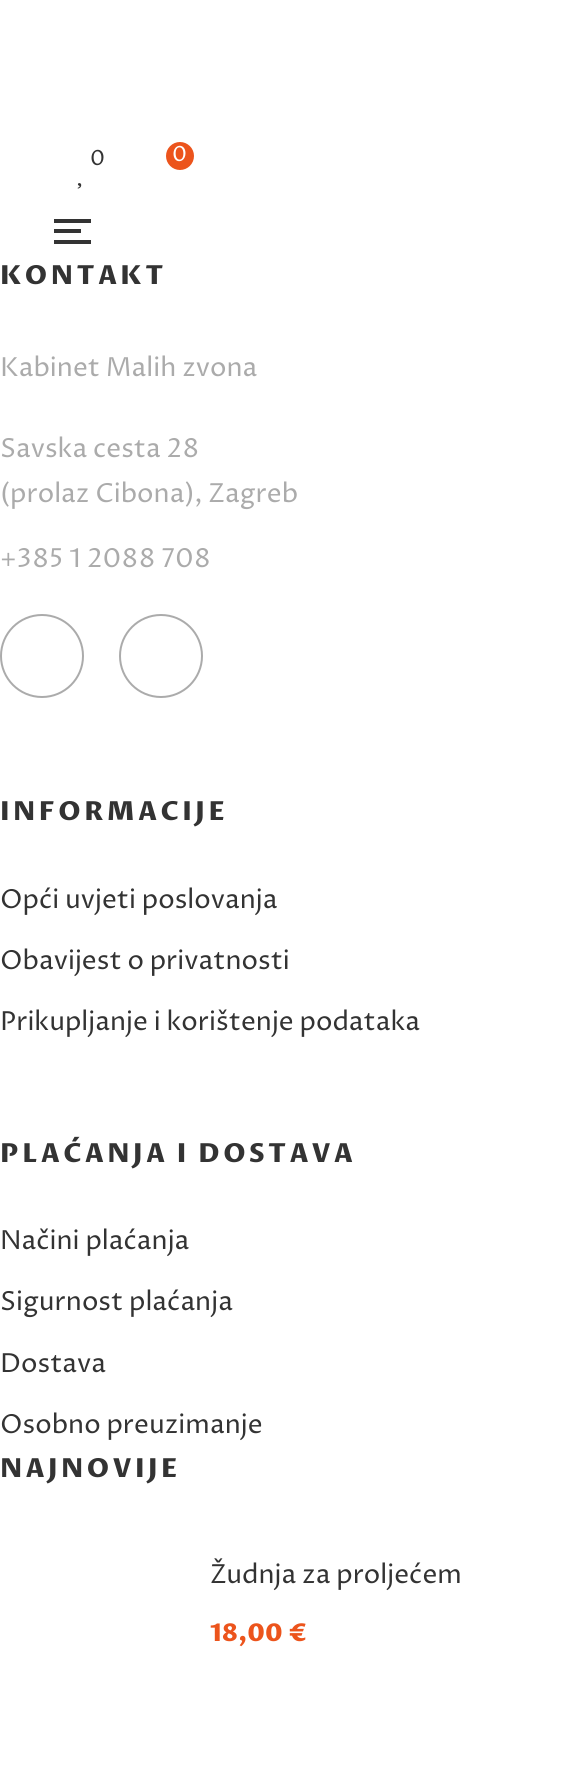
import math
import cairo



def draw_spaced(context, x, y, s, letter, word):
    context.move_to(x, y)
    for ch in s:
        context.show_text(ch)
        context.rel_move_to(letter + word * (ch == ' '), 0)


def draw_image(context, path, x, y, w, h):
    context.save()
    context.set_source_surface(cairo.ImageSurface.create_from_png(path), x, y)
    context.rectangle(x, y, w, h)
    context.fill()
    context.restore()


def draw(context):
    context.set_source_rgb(1, 1, 1)
    context.paint()
    draw_image(context, "images/1.png", 77, 183, 5, 6)
    context.set_source_rgb(236 / 255, 84 / 255, 28 / 255)
    context.arc(180, 156, 14, 0, 2 * math.pi)
    context.fill()
    context.set_source_rgb(51 / 255, 51 / 255, 51 / 255)
    context.rectangle(54, 229, 27, 4)
    context.fill()
    context.rectangle(54, 219, 37, 4)
    context.fill()
    context.rectangle(54, 240, 37, 4)
    context.fill()
    context.arc(42, 656, 41, 0, 2 * math.pi)
    context.set_source_rgb(171 / 255, 171 / 255, 171 / 255)
    context.stroke()
    context.arc(161, 656, 41, 0, 2 * math.pi)
    context.stroke()
    context.select_font_face("Proza Libre")
    context.set_font_size(21)
    context.set_source_rgb(51 / 255, 51 / 255, 51 / 255)
    context.move_to(90, 165)
    context.show_text("0")
    context.set_source_rgb(1, 1, 1)
    context.move_to(172, 161)
    context.show_text("0")
    context.select_font_face("Proza Libre ExtraBold")
    context.set_font_size(26.25)
    context.set_source_rgb(51 / 255, 51 / 255, 51 / 255)
    draw_spaced(context, 0, 284, "KONTAKT", 3.5, 0)
    context.select_font_face("Proza Libre")
    context.set_source_rgb(171 / 255, 171 / 255, 171 / 255)
    context.move_to(0, 376)
    context.show_text("Kabinet Malih zvona")
    context.move_to(0, 457)
    context.show_text("Savska cesta 28")
    context.move_to(0, 502)
    context.show_text("(prolaz Cibona), Zagreb")
    context.move_to(0, 567)
    context.show_text("+385 1 2088 708")
    context.select_font_face("Proza Libre ExtraBold")
    context.set_source_rgb(51 / 255, 51 / 255, 51 / 255)
    draw_spaced(context, 0, 820, "INFORMACIJE", 3.5, 0)
    context.select_font_face("Proza Libre")
    context.move_to(0, 908)
    context.show_text("Opći uvjeti poslovanja")
    context.move_to(0, 969)
    context.show_text("Obavijest o privatnosti")
    context.move_to(0, 1030)
    context.show_text("Prikupljanje i korištenje podataka")
    context.select_font_face("Proza Libre ExtraBold")
    draw_spaced(context, 0, 1162, "PLAĆANJA I DOSTAVA", 3.5, 0)
    context.select_font_face("Proza Libre")
    context.move_to(0, 1249)
    context.show_text("Načini plaćanja")
    context.move_to(0, 1310)
    context.show_text("Sigurnost plaćanja")
    context.move_to(0, 1372)
    context.show_text("Dostava")
    context.move_to(0, 1433)
    context.show_text("Osobno preuzimanje")
    context.select_font_face("Proza Libre ExtraBold")
    draw_spaced(context, 0, 1477, "NAJNOVIJE", 3.5, 0)
    context.select_font_face("Proza Libre")
    context.move_to(210, 1583)
    context.show_text("Žudnja za proljećem")
    context.select_font_face("Proza Libre ExtraBold")
    context.set_font_size(24.5)
    context.set_source_rgb(236 / 255, 84 / 255, 28 / 255)
    context.move_to(210, 1641)
    context.show_text("18,00")
    context.move_to(288, 1641)
    context.show_text("€")


surface = cairo.ImageSurface(cairo.Format.RGB24, 576, 1790)
context = cairo.Context(surface)
options = cairo.FontOptions()
options.set_hint_metrics(cairo.HintMetrics.OFF)
options.set_hint_style(cairo.HintStyle.NONE)
context.set_font_options(options)
context.set_miter_limit(4)
draw(context)
surface.write_to_png("out.png")
